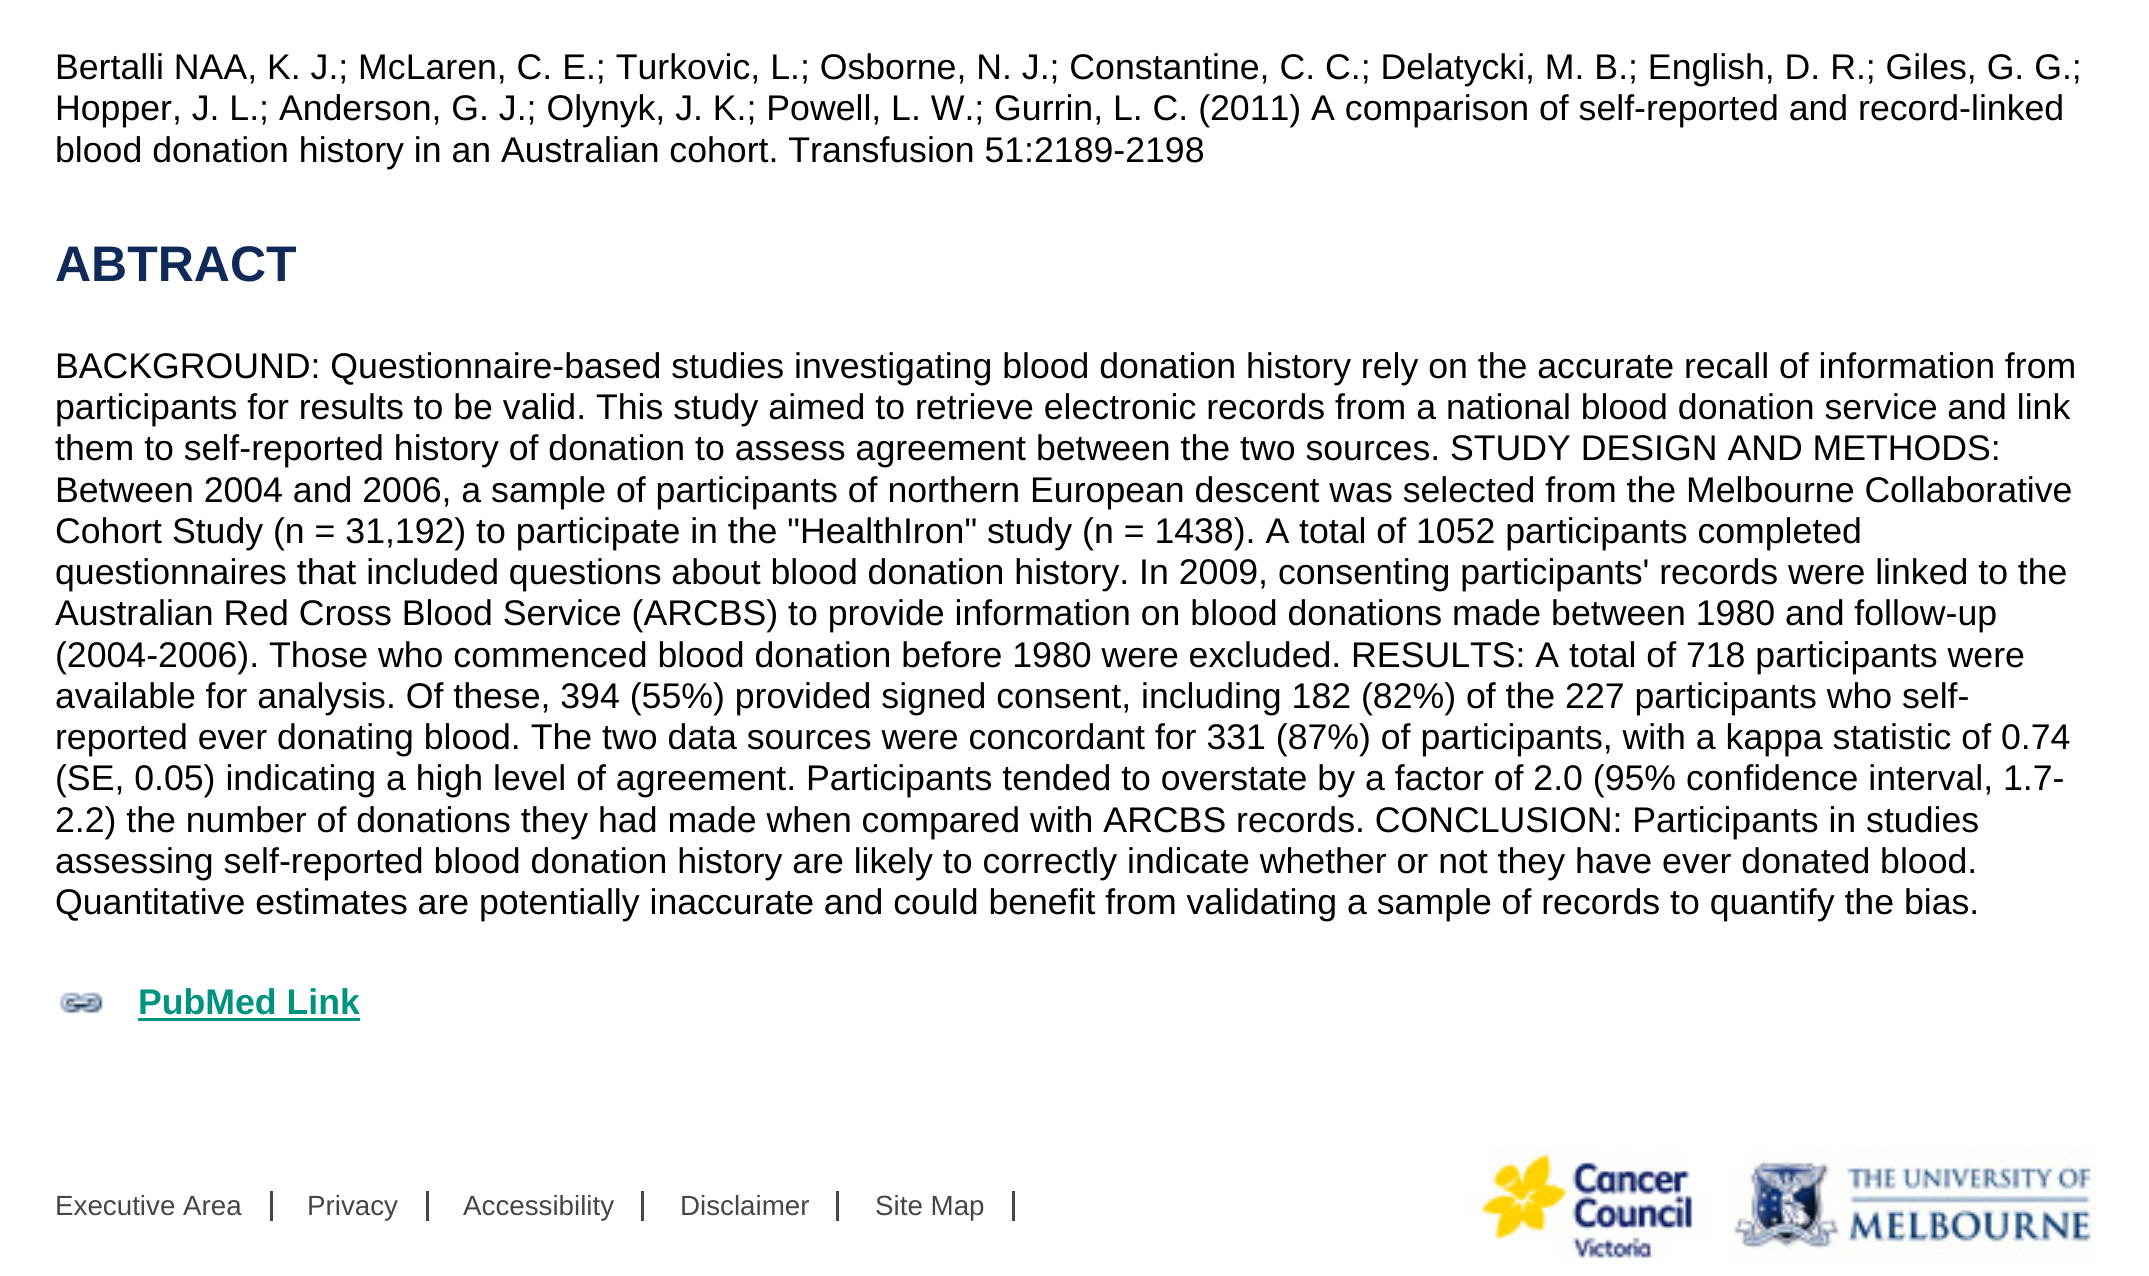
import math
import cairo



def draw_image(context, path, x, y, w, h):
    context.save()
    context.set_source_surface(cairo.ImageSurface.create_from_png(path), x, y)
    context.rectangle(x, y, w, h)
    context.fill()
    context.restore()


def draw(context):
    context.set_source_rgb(1, 1, 1)
    context.paint()
    draw_image(context, "images/1.png", 59, 992, 44, 22)
    context.set_source_rgb(0, 147 / 255, 127 / 255)
    context.rectangle(138, 1018, 222, 3)
    context.fill()
    context.set_source_rgb(70 / 255, 70 / 255, 70 / 255)
    context.rectangle(270, 1191, 3, 30)
    context.fill()
    context.rectangle(426, 1191, 3, 30)
    context.fill()
    context.rectangle(641, 1191, 3, 30)
    context.fill()
    context.rectangle(836, 1191, 3, 30)
    context.fill()
    context.rectangle(1012, 1191, 3, 30)
    context.fill()
    draw_image(context, "images/2.png", 1469, 1149, 627, 111)
    context.select_font_face("Liberation Sans")
    context.set_font_size(35.65)
    context.set_source_rgb(0, 0, 0)
    context.move_to(55, 79)
    context.show_text("Bertalli NAA, K. J.; McLaren, C. E.; Turkovic, L.; Osborne, N. J.; Constantine, C. C.; Delatycki, M. B.; English, D. R.; Giles, G. G.;")
    context.move_to(55, 120)
    context.show_text("Hopper, J. L.; Anderson, G. J.; Olynyk, J. K.; Powell, L. W.; Gurrin, L. C. (2011) A comparison of self-reported and record-linked")
    context.move_to(55, 162)
    context.show_text("blood donation history in an Australian cohort. Transfusion 51:2189-2198")
    context.select_font_face("Liberation Sans", cairo.FontSlant.NORMAL, cairo.FontWeight.BOLD)
    context.set_font_size(50)
    context.set_source_rgb(15 / 255, 42 / 255, 89 / 255)
    context.move_to(55, 281)
    context.show_text("ABTRACT")
    context.select_font_face("Liberation Sans")
    context.set_font_size(35.65)
    context.set_source_rgb(0, 0, 0)
    context.move_to(55, 378)
    context.show_text("BACKGROUND: Questionnaire-based studies investigating blood donation history rely on the accurate recall of information from")
    context.move_to(55, 419)
    context.show_text("participants for results to be valid. This study aimed to retrieve electronic records from a national blood donation service and link")
    context.move_to(55, 460)
    context.show_text("them to self-reported history of donation to assess agreement between the two sources. STUDY DESIGN AND METHODS:")
    context.move_to(55, 502)
    context.show_text("Between 2004 and 2006, a sample of participants of northern European descent was selected from the Melbourne Collaborative")
    context.move_to(55, 543)
    context.show_text("Cohort Study (n = 31,192) to participate in the \"HealthIron\" study (n = 1438). A total of 1052 participants completed")
    context.move_to(55, 584)
    context.show_text("questionnaires that included questions about blood donation history. In 2009, consenting participants' records were linked to the")
    context.move_to(55, 625)
    context.show_text("Australian Red Cross Blood Service (ARCBS) to provide information on blood donations made between 1980 and follow-up")
    context.move_to(55, 667)
    context.show_text("(2004-2006). Those who commenced blood donation before 1980 were excluded. RESULTS: A total of 718 participants were")
    context.move_to(55, 708)
    context.show_text("available for analysis. Of these, 394 (55%) provided signed consent, including 182 (82%) of the 227 participants who self-")
    context.move_to(55, 749)
    context.show_text("reported ever donating blood. The two data sources were concordant for 331 (87%) of participants, with a kappa statistic of 0.74")
    context.move_to(55, 790)
    context.show_text("(SE, 0.05) indicating a high level of agreement. Participants tended to overstate by a factor of 2.0 (95% confidence interval, 1.7-")
    context.move_to(55, 832)
    context.show_text("2.2) the number of donations they had made when compared with ARCBS records. CONCLUSION: Participants in studies")
    context.move_to(55, 873)
    context.show_text("assessing self-reported blood donation history are likely to correctly indicate whether or not they have ever donated blood.")
    context.move_to(55, 914)
    context.show_text("Quantitative estimates are potentially inaccurate and could benefit from validating a sample of records to quantify the bias.")
    context.select_font_face("Liberation Sans", cairo.FontSlant.NORMAL, cairo.FontWeight.BOLD)
    context.set_source_rgb(0, 147 / 255, 127 / 255)
    context.move_to(138, 1014)
    context.show_text("PubMed Link")
    context.select_font_face("Liberation Sans")
    context.set_font_size(27.75)
    context.set_source_rgb(70 / 255, 70 / 255, 70 / 255)
    context.move_to(55, 1215)
    context.show_text("Executive Area")
    context.move_to(307, 1215)
    context.show_text("Privacy")
    context.move_to(463, 1215)
    context.show_text("Accessibility")
    context.move_to(680, 1215)
    context.show_text("Disclaimer")
    context.move_to(875, 1215)
    context.show_text("Site Map")


surface = cairo.ImageSurface(cairo.Format.RGB24, 2149, 1276)
context = cairo.Context(surface)
options = cairo.FontOptions()
options.set_hint_metrics(cairo.HintMetrics.OFF)
options.set_hint_style(cairo.HintStyle.NONE)
context.set_font_options(options)
context.set_miter_limit(4)
draw(context)
surface.write_to_png("out.png")
